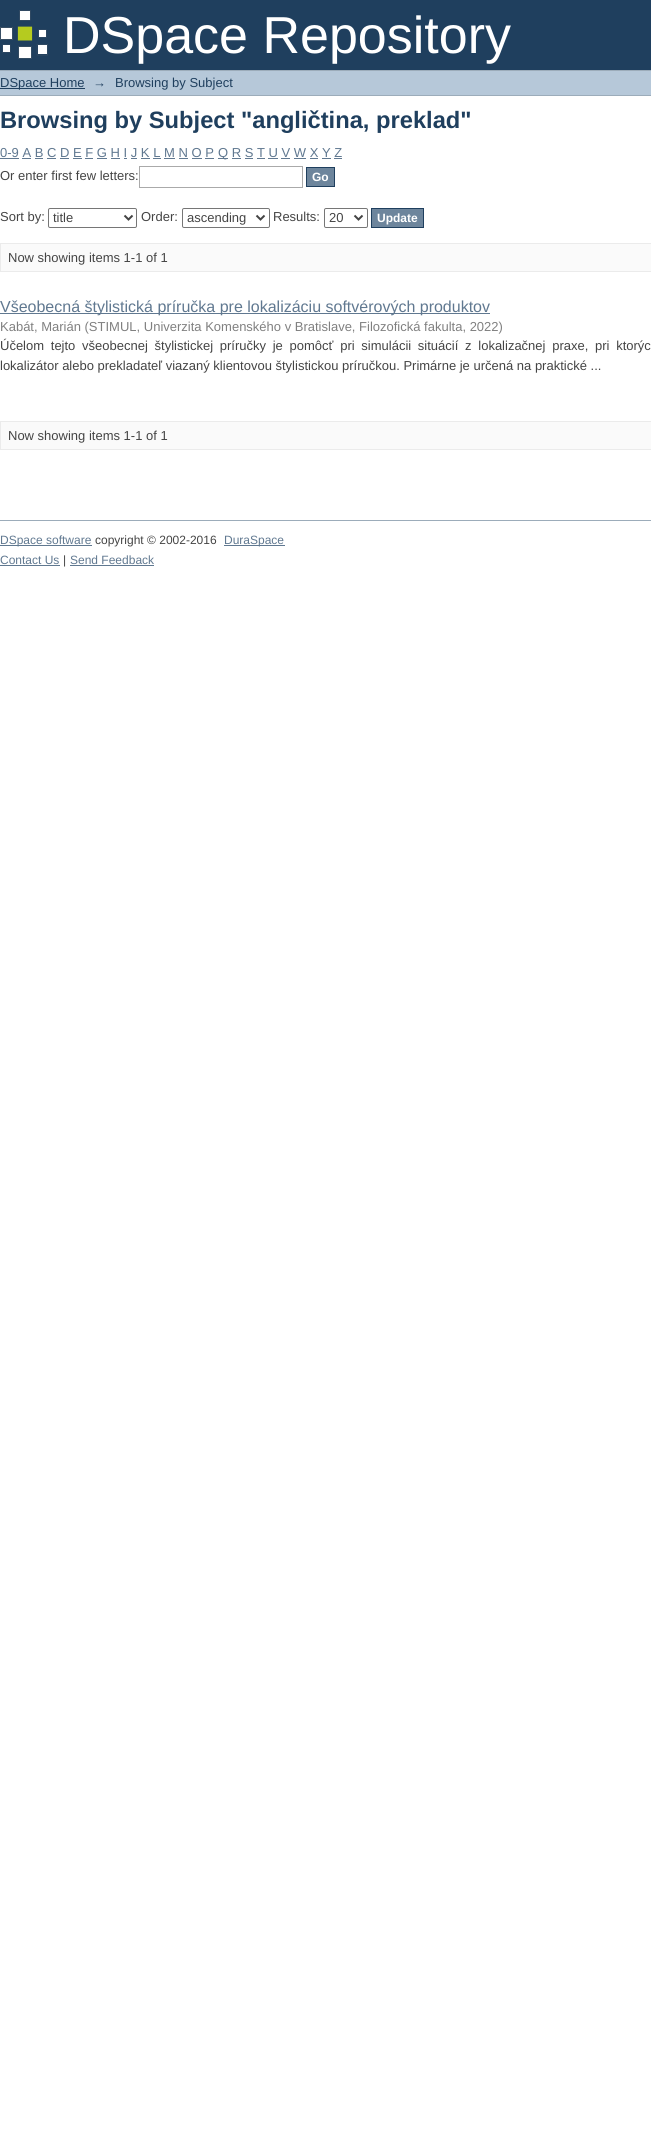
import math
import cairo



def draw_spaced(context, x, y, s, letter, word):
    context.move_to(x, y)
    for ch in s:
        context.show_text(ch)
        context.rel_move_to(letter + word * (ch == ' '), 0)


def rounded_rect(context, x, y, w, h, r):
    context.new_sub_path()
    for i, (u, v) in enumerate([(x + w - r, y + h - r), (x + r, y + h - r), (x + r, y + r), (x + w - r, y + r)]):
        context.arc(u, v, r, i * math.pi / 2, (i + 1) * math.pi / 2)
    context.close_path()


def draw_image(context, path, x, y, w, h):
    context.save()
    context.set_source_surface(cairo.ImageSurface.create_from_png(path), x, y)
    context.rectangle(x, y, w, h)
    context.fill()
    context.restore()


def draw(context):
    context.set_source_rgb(1, 1, 1)
    context.paint()
    context.set_source_rgb(31 / 255, 63 / 255, 94 / 255)
    context.rectangle(0, 0, 651, 70)
    context.fill()
    draw_image(context, "images/1.png", 0, 10, 48, 49)
    context.set_source_rgb(182 / 255, 200 / 255, 217 / 255)
    context.rectangle(0, 71, 651, 24)
    context.fill()
    context.set_source_rgb(156 / 255, 172 / 255, 186 / 255)
    context.rectangle(0, 70, 651, 1)
    context.fill()
    context.rectangle(0, 95, 651, 1)
    context.fill()
    context.set_source_rgb(31 / 255, 63 / 255, 94 / 255)
    context.rectangle(0, 88, 85, 1)
    context.fill()
    context.set_source_rgb(96 / 255, 120 / 255, 144 / 255)
    context.rectangle(0, 158, 19, 1)
    context.fill()
    context.rectangle(218, 158, 10, 1)
    context.fill()
    context.rectangle(22, 158, 9, 1)
    context.fill()
    context.rectangle(35, 158, 8, 1)
    context.fill()
    context.rectangle(47, 158, 9, 1)
    context.fill()
    context.rectangle(60, 158, 9, 1)
    context.fill()
    context.rectangle(73, 158, 9, 1)
    context.fill()
    context.rectangle(85, 158, 8, 1)
    context.fill()
    context.rectangle(97, 158, 10, 1)
    context.fill()
    context.rectangle(111, 158, 9, 1)
    context.fill()
    context.rectangle(124, 158, 3, 1)
    context.fill()
    context.rectangle(131, 158, 6, 1)
    context.fill()
    context.rectangle(141, 158, 9, 1)
    context.fill()
    context.rectangle(153, 158, 8, 1)
    context.fill()
    context.rectangle(164, 158, 11, 1)
    context.fill()
    context.rectangle(179, 158, 9, 1)
    context.fill()
    context.rectangle(192, 158, 10, 1)
    context.fill()
    context.rectangle(205, 158, 9, 1)
    context.fill()
    context.rectangle(232, 158, 9, 1)
    context.fill()
    context.rectangle(245, 158, 8, 1)
    context.fill()
    context.rectangle(257, 158, 8, 1)
    context.fill()
    context.rectangle(268, 158, 10, 1)
    context.fill()
    context.rectangle(281, 158, 9, 1)
    context.fill()
    context.rectangle(294, 158, 12, 1)
    context.fill()
    context.rectangle(310, 158, 8, 1)
    context.fill()
    context.rectangle(322, 158, 9, 1)
    context.fill()
    context.rectangle(334, 158, 8, 1)
    context.fill()
    context.rectangle(139.5, 166.5, 163, 21)
    context.set_source_rgb(170 / 255, 170 / 255, 170 / 255)
    context.set_line_width(1)
    context.stroke()
    context.set_source_rgb(109 / 255, 133 / 255, 156 / 255)
    context.rectangle(306.5, 167.5, 28, 19)
    context.fill_preserve()
    context.set_source_rgb(31 / 255, 63 / 255, 94 / 255)
    context.stroke()
    rounded_rect(context, 48.5, 208.5, 88, 19, 1.5)
    context.set_source_rgb(118 / 255, 118 / 255, 118 / 255)
    context.stroke()
    context.new_path()
    context.move_to(124.5, 215.5)
    context.line_to(128.5, 219.5)
    context.line_to(132.5, 215.5)
    context.set_source_rgb(68 / 255, 68 / 255, 68 / 255)
    context.set_line_width(2)
    context.stroke()
    rounded_rect(context, 182.5, 208.5, 87, 19, 1.5)
    context.set_source_rgb(118 / 255, 118 / 255, 118 / 255)
    context.set_line_width(1)
    context.stroke()
    context.new_path()
    context.move_to(256.5, 215.5)
    context.line_to(260.5, 219.5)
    context.line_to(264.5, 215.5)
    context.set_source_rgb(68 / 255, 68 / 255, 68 / 255)
    context.set_line_width(2)
    context.stroke()
    rounded_rect(context, 324.5, 208.5, 43, 19, 1.5)
    context.set_source_rgb(118 / 255, 118 / 255, 118 / 255)
    context.set_line_width(1)
    context.stroke()
    context.new_path()
    context.move_to(354.5, 215.5)
    context.line_to(358.5, 219.5)
    context.line_to(362.5, 215.5)
    context.set_source_rgb(68 / 255, 68 / 255, 68 / 255)
    context.set_line_width(2)
    context.stroke()
    context.set_source_rgb(109 / 255, 133 / 255, 156 / 255)
    context.rectangle(371.5, 208.5, 52, 19)
    context.fill_preserve()
    context.set_source_rgb(31 / 255, 63 / 255, 94 / 255)
    context.set_line_width(1)
    context.stroke()
    context.set_source_rgb(250 / 255, 250 / 255, 250 / 255)
    context.rectangle(0.5, 243.5, 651, 28)
    context.fill_preserve()
    context.set_source_rgb(235 / 255, 235 / 255, 235 / 255)
    context.stroke()
    context.set_source_rgb(96 / 255, 120 / 255, 144 / 255)
    context.rectangle(0, 313, 490, 1)
    context.fill()
    context.set_source_rgb(250 / 255, 250 / 255, 250 / 255)
    context.rectangle(0.5, 421.5, 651, 28)
    context.fill_preserve()
    context.set_source_rgb(235 / 255, 235 / 255, 235 / 255)
    context.stroke()
    context.set_source_rgb(156 / 255, 172 / 255, 186 / 255)
    context.rectangle(0, 520, 651, 1)
    context.fill()
    context.set_source_rgb(96 / 255, 120 / 255, 144 / 255)
    context.rectangle(0, 545, 92, 1)
    context.fill()
    context.rectangle(224, 545, 61, 1)
    context.fill()
    context.rectangle(0, 565, 60, 1)
    context.fill()
    context.rectangle(70, 565, 84, 1)
    context.fill()
    context.select_font_face("Liberation Sans")
    context.set_font_size(52)
    context.set_source_rgb(1, 1, 1)
    context.move_to(63, 53)
    context.show_text("DSpace Repository")
    context.set_font_size(13)
    context.set_source_rgb(31 / 255, 63 / 255, 94 / 255)
    context.move_to(0, 87)
    context.show_text("DSpace Home")
    context.move_to(93, 87)
    context.show_text("→")
    context.move_to(115, 87)
    context.show_text("Browsing by Subject")
    context.select_font_face("Liberation Sans", cairo.FontSlant.NORMAL, cairo.FontWeight.BOLD)
    context.set_font_size(23.7)
    context.move_to(0, 128)
    context.show_text("Browsing by Subject \"angličtina, preklad\"")
    context.select_font_face("Liberation Sans")
    context.set_font_size(13)
    context.set_source_rgb(96 / 255, 120 / 255, 144 / 255)
    context.move_to(0, 157)
    context.show_text("0-9 A B C D E F G H I J K L M N O P")
    context.move_to(218, 157)
    context.show_text("Q R S T U V W X Y Z")
    context.set_source_rgb(68 / 255, 68 / 255, 68 / 255)
    context.move_to(0, 180)
    context.show_text("Or enter first few letters:")
    context.select_font_face("Liberation Sans", cairo.FontSlant.NORMAL, cairo.FontWeight.BOLD)
    context.set_font_size(12)
    context.set_source_rgb(1, 1, 1)
    context.move_to(312, 181)
    context.show_text("Go")
    context.select_font_face("Liberation Sans")
    context.set_font_size(13)
    context.set_source_rgb(68 / 255, 68 / 255, 68 / 255)
    context.move_to(0, 221)
    context.show_text("Sort by:")
    context.move_to(53, 222)
    context.show_text("title")
    context.move_to(141, 221)
    context.show_text("Order:")
    context.move_to(187, 222)
    context.show_text("ascending")
    context.move_to(273, 221)
    context.show_text("Results:")
    context.move_to(329, 222)
    context.show_text("20")
    context.select_font_face("Liberation Sans", cairo.FontSlant.NORMAL, cairo.FontWeight.BOLD)
    context.set_font_size(12)
    context.set_source_rgb(1, 1, 1)
    context.move_to(377, 222)
    context.show_text("Update")
    context.select_font_face("Liberation Sans")
    context.set_font_size(13)
    context.set_source_rgb(68 / 255, 68 / 255, 68 / 255)
    context.move_to(8, 262)
    context.show_text("Now showing items 1-1 of 1")
    context.set_font_size(16)
    context.set_source_rgb(96 / 255, 120 / 255, 144 / 255)
    context.move_to(0, 312)
    context.show_text("Všeobecná štylistická príručka pre lokalizáciu softvérových produktov")
    context.set_font_size(13)
    context.set_source_rgb(128 / 255, 128 / 255, 128 / 255)
    context.move_to(0, 331)
    context.show_text("Kabát, Marián (STIMUL, Univerzita Komenského v Bratislave, Filozofická fakulta, 2022)")
    context.set_source_rgb(68 / 255, 68 / 255, 68 / 255)
    draw_spaced(context, 0, 350, "Účelom tejto všeobecnej štylistickej príručky je pomôcť pri simulácii situácií z lokalizačnej praxe, pri ktorýc", 0, 3.1)
    context.move_to(0, 370)
    context.show_text("lokalizátor alebo prekladateľ viazaný klientovou štylistickou príručkou. Primárne je určená na praktické ...")
    context.move_to(8, 440)
    context.show_text("Now showing items 1-1 of 1")
    context.set_font_size(12)
    context.set_source_rgb(96 / 255, 120 / 255, 144 / 255)
    context.move_to(0, 544)
    context.show_text("DSpace software")
    context.set_source_rgb(68 / 255, 68 / 255, 68 / 255)
    context.move_to(95, 544)
    context.show_text("copyright © 2002-2016")
    context.set_source_rgb(96 / 255, 120 / 255, 144 / 255)
    context.move_to(224, 544)
    context.show_text("DuraSpace")
    context.move_to(0, 564)
    context.show_text("Contact Us")
    context.set_source_rgb(68 / 255, 68 / 255, 68 / 255)
    context.move_to(63, 564)
    context.show_text("|")
    context.set_source_rgb(96 / 255, 120 / 255, 144 / 255)
    context.move_to(70, 564)
    context.show_text("Send Feedback")


surface = cairo.ImageSurface(cairo.Format.RGB24, 651, 2150)
context = cairo.Context(surface)
options = cairo.FontOptions()
options.set_hint_metrics(cairo.HintMetrics.OFF)
options.set_hint_style(cairo.HintStyle.NONE)
context.set_font_options(options)
context.set_miter_limit(4)
draw(context)
surface.write_to_png("out.png")
